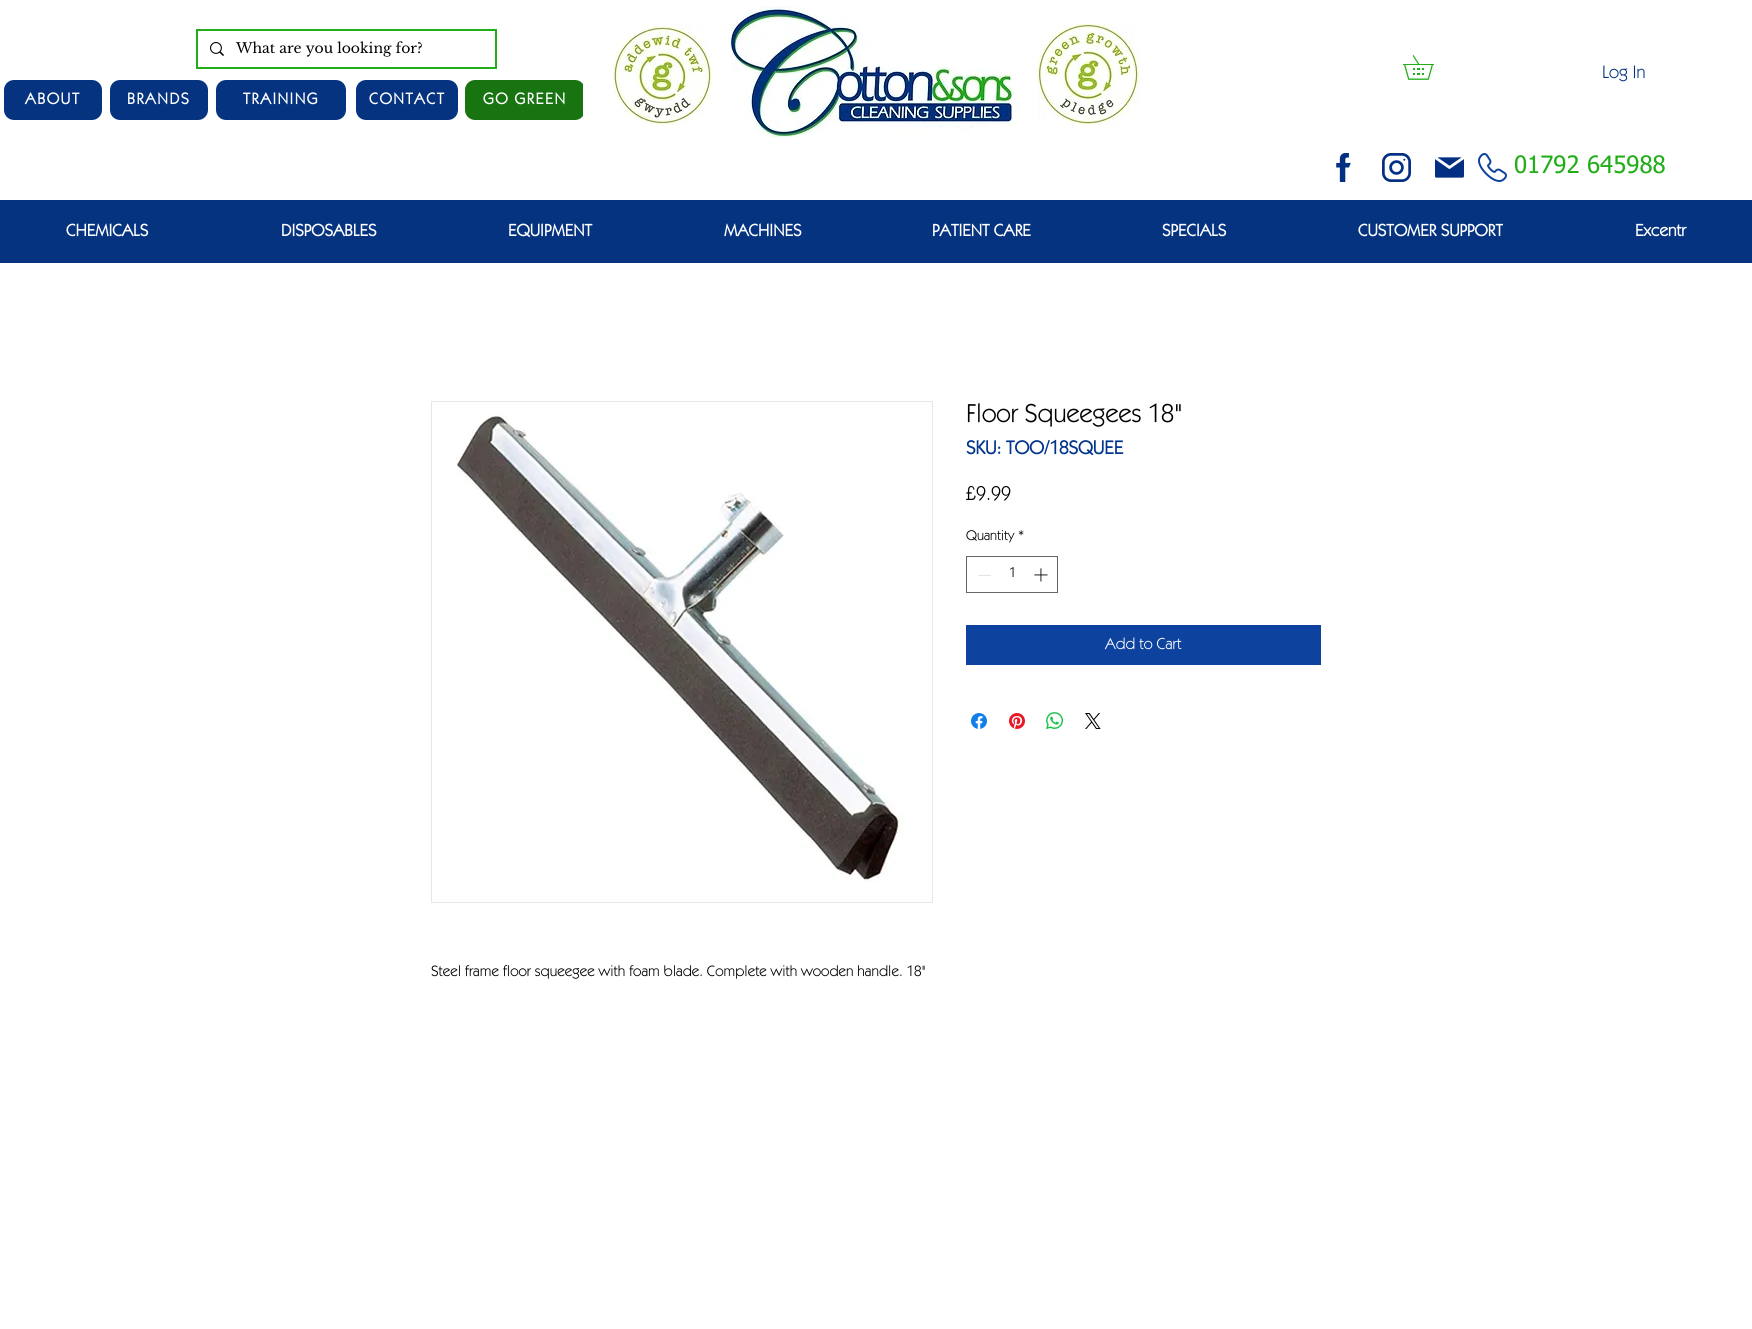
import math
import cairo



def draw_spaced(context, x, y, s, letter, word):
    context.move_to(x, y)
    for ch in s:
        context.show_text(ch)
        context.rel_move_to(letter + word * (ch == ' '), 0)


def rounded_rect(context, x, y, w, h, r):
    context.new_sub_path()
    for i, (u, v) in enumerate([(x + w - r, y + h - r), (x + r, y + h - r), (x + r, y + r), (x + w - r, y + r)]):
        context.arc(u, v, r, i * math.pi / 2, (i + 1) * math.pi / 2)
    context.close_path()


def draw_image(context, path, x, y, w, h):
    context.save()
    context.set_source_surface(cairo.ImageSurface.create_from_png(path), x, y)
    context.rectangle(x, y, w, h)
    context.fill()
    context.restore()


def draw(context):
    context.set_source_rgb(1, 1, 1)
    context.paint()
    context.rectangle(197, 30, 299, 38)
    context.set_source_rgb(34 / 255, 174 / 255, 24 / 255)
    context.stroke()
    draw_image(context, "images/1.png", 210, 42, 14, 14)
    context.set_source_rgb(5 / 255, 51 / 255, 128 / 255)
    rounded_rect(context, 4, 80, 98, 40, 10)
    context.fill()
    rounded_rect(context, 110, 80, 98, 40, 10)
    context.fill()
    rounded_rect(context, 216, 80, 130, 40, 10)
    context.fill()
    rounded_rect(context, 356, 80, 102, 40, 10)
    context.fill()
    context.set_source_rgb(23 / 255, 116 / 255, 16 / 255)
    rounded_rect(context, 465, 80, 120, 40, 10)
    context.fill()
    context.set_source_rgb(1, 1, 1)
    context.rectangle(583, 84, 2, 32)
    context.fill()
    draw_image(context, "images/2.png", 613, 24, 100, 101)
    draw_image(context, "images/3.png", 731, 6, 288, 131)
    draw_image(context, "images/4.png", 1038, 24, 102, 101)
    draw_image(context, "images/5.png", 1403, 55, 31, 25)
    draw_image(context, "images/6.png", 1336, 153, 15, 29)
    draw_image(context, "images/7.png", 1382, 153, 29, 29)
    draw_image(context, "images/8.png", 1435, 157, 29, 21)
    draw_image(context, "images/9.png", 1478, 153, 29, 29)
    context.set_source_rgb(5 / 255, 51 / 255, 128 / 255)
    context.rectangle(0, 200, 1752, 63)
    context.fill()
    context.rectangle(966.5, 556.5, 91, 36)
    context.set_source_rgb(102 / 255, 102 / 255, 102 / 255)
    context.set_line_width(1)
    context.stroke()
    context.set_source_rgb(227 / 255, 227 / 255, 227 / 255)
    context.rectangle(978, 575, 13, 1)
    context.fill()
    draw_image(context, "images/10.png", 1034, 568, 14, 14)
    context.set_source_rgb(13 / 255, 66 / 255, 158 / 255)
    context.rectangle(966, 625, 355, 40)
    context.fill()
    draw_image(context, "images/11.png", 971, 713, 16, 16)
    draw_image(context, "images/12.png", 1009, 713, 16, 16)
    draw_image(context, "images/13.png", 1046, 712, 17, 17)
    draw_image(context, "images/14.png", 1085, 713, 16, 16)
    context.rectangle(431.5, 401.5, 501, 501)
    context.set_source_rgb(232 / 255, 230 / 255, 230 / 255)
    context.stroke()
    draw_image(context, "images/15.png", 456, 414, 448, 468)
    context.select_font_face("Libre Baskerville")
    context.set_font_size(14)
    context.set_source_rgb(0, 0, 0)
    context.move_to(236, 53)
    context.show_text("What are you looking for?")
    context.select_font_face("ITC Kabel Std", cairo.FontSlant.NORMAL, cairo.FontWeight.BOLD)
    context.set_font_size(16)
    context.set_source_rgb(1, 1, 1)
    draw_spaced(context, 25, 104, "ABOUT", 1.5, 0)
    draw_spaced(context, 127, 104, "BRANDS", 1.5, 0)
    draw_spaced(context, 243, 104, "TRAINING", 1.5, 0)
    draw_spaced(context, 369, 104, "CONTACT", 1.5, 0)
    draw_spaced(context, 483, 104, "GO GREEN", 1.5, 0)
    context.select_font_face("ITC Kabel Std")
    context.set_font_size(18)
    context.set_source_rgb(5 / 255, 51 / 255, 128 / 255)
    context.move_to(1602, 78)
    context.show_text("Log In")
    context.select_font_face("tahoma")
    context.set_font_size(24)
    context.set_source_rgb(34 / 255, 174 / 255, 24 / 255)
    context.move_to(1514, 173)
    context.show_text("01792 645988")
    context.select_font_face("ITC Kabel Std", cairo.FontSlant.NORMAL, cairo.FontWeight.BOLD)
    context.set_font_size(17)
    context.set_source_rgb(1, 1, 1)
    context.move_to(66, 236)
    context.show_text("CHEMICALS")
    context.move_to(281, 236)
    context.show_text("DISPOSABLES")
    context.move_to(508, 236)
    context.show_text("EQUIPMENT")
    context.move_to(724, 236)
    context.show_text("MACHINES")
    context.move_to(932, 236)
    context.show_text("PATIENT CARE")
    context.move_to(1162, 236)
    context.show_text("SPECIALS")
    context.move_to(1358, 236)
    context.show_text("CUSTOMER SUPPORT")
    context.move_to(1635, 236)
    context.show_text("Excentr")
    context.select_font_face("ITC Kabel Std")
    context.set_font_size(26)
    context.set_source_rgb(0, 0, 0)
    context.move_to(966, 422)
    context.show_text("Floor Squeegees 18\"")
    context.select_font_face("ITC Kabel Std", cairo.FontSlant.NORMAL, cairo.FontWeight.BOLD)
    context.set_font_size(19)
    context.set_source_rgb(1 / 255, 52 / 255, 140 / 255)
    context.move_to(966, 454)
    context.show_text("SKU: TOO/18SQUEE")
    context.select_font_face("ITC Kabel Std")
    context.set_font_size(20)
    context.set_source_rgb(0, 0, 0)
    context.move_to(966, 500)
    context.show_text("£9.99")
    context.set_font_size(14)
    context.move_to(966, 540)
    context.show_text("Quantity")
    context.move_to(1018, 540)
    context.show_text("*")
    context.move_to(1009, 577)
    context.show_text("1")
    context.set_font_size(16)
    context.set_source_rgb(1, 1, 1)
    context.move_to(1105, 649)
    context.show_text("Add to Cart")
    context.set_font_size(15)
    context.set_source_rgb(0, 0, 0)
    context.move_to(431, 976)
    context.show_text("Steel frame floor squeegee with foam blade. Complete with wooden handle. 18\"")


surface = cairo.ImageSurface(cairo.Format.RGB24, 1752, 1329)
context = cairo.Context(surface)
options = cairo.FontOptions()
options.set_hint_metrics(cairo.HintMetrics.OFF)
options.set_hint_style(cairo.HintStyle.NONE)
context.set_font_options(options)
context.set_miter_limit(4)
draw(context)
surface.write_to_png("out.png")
